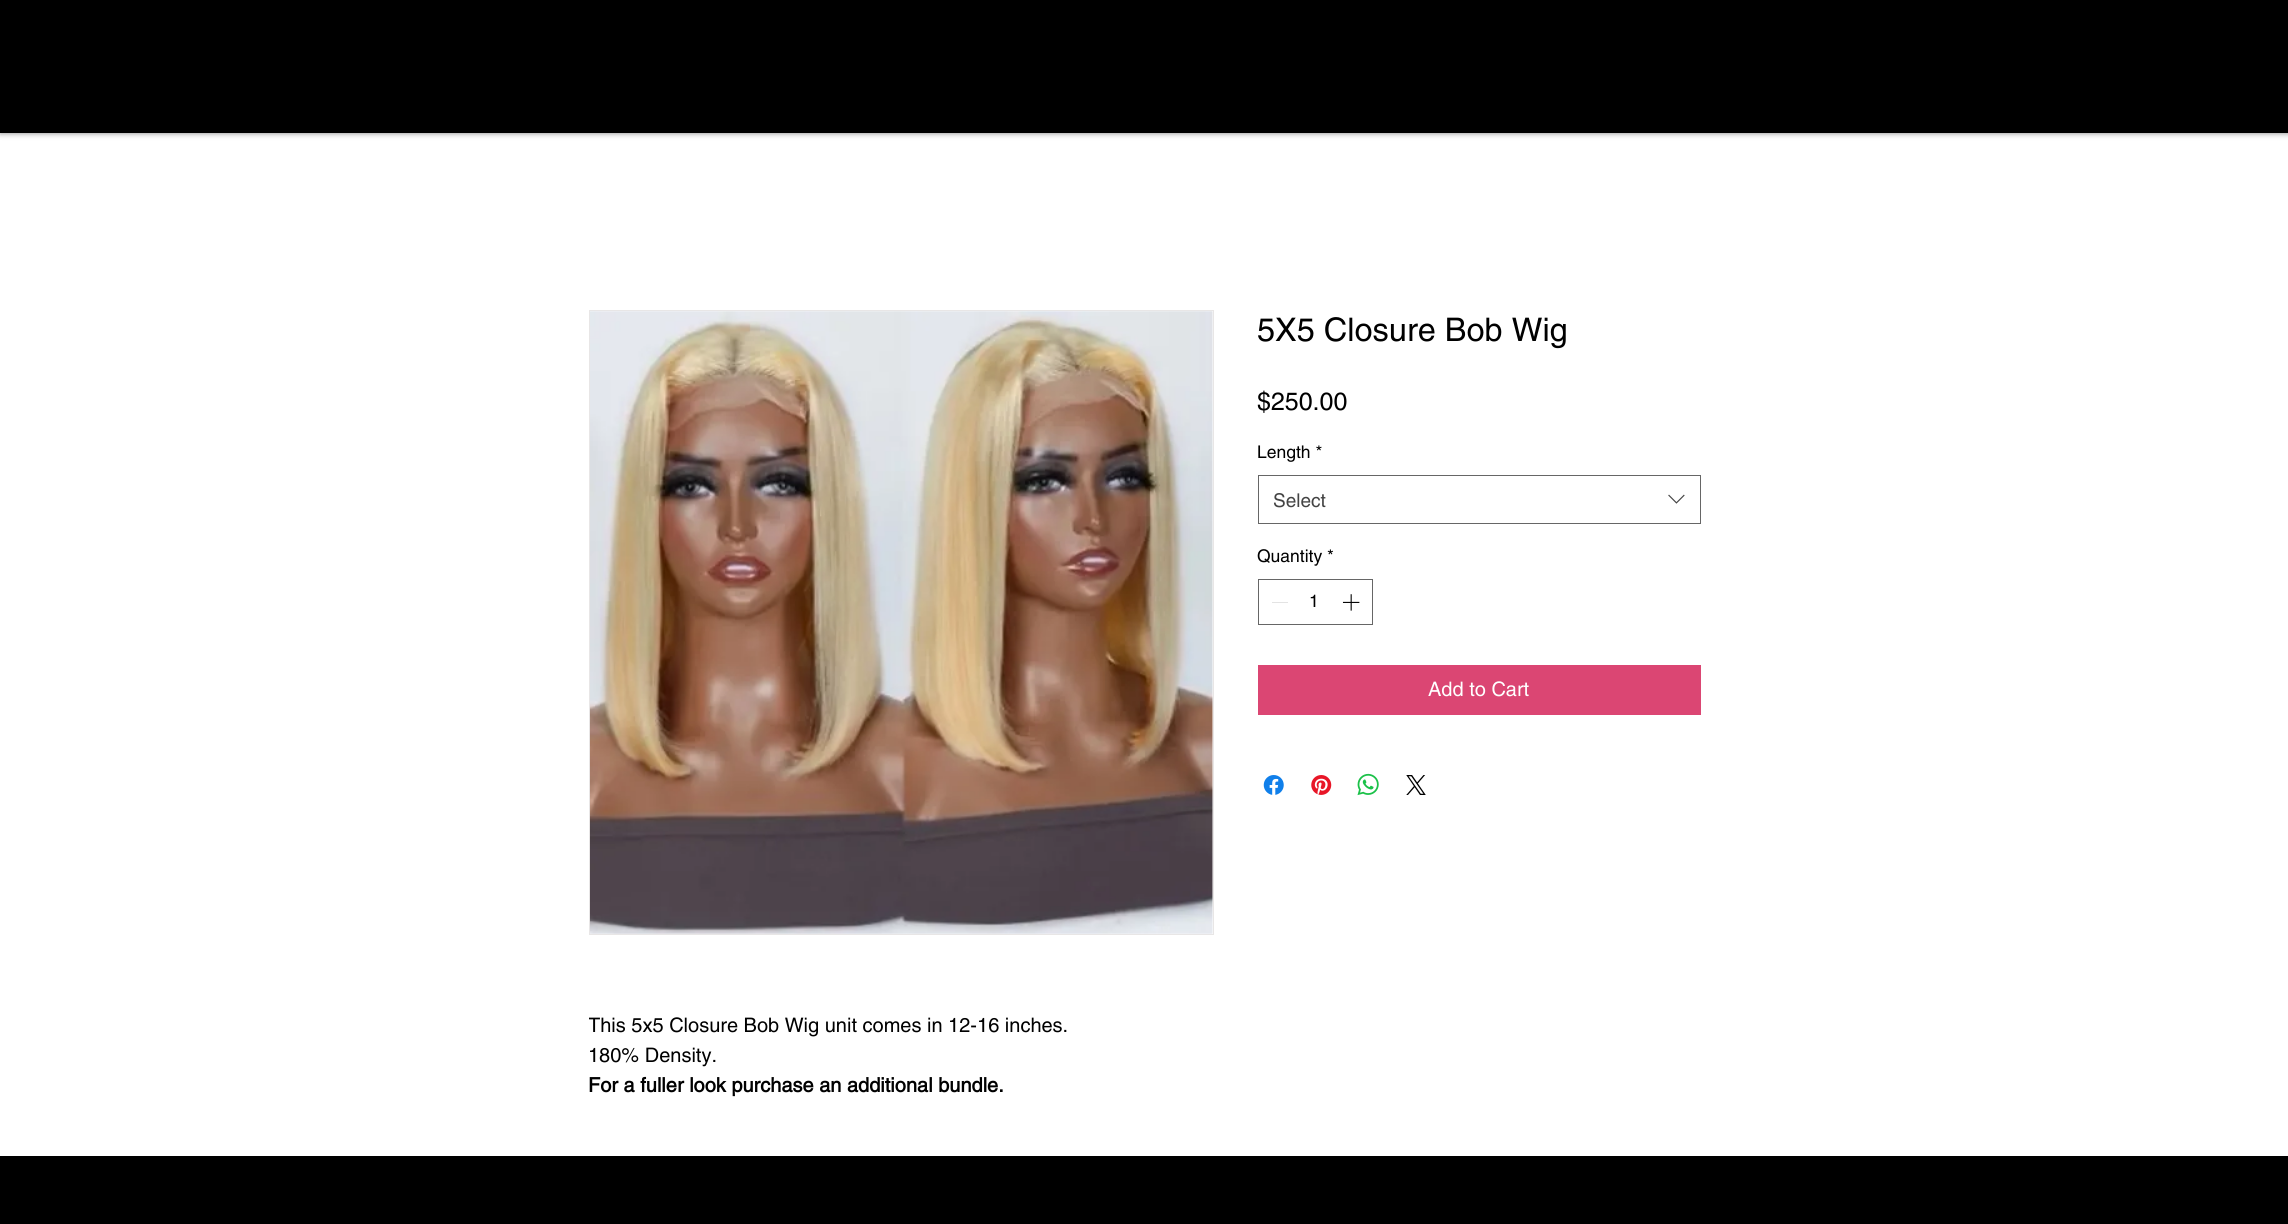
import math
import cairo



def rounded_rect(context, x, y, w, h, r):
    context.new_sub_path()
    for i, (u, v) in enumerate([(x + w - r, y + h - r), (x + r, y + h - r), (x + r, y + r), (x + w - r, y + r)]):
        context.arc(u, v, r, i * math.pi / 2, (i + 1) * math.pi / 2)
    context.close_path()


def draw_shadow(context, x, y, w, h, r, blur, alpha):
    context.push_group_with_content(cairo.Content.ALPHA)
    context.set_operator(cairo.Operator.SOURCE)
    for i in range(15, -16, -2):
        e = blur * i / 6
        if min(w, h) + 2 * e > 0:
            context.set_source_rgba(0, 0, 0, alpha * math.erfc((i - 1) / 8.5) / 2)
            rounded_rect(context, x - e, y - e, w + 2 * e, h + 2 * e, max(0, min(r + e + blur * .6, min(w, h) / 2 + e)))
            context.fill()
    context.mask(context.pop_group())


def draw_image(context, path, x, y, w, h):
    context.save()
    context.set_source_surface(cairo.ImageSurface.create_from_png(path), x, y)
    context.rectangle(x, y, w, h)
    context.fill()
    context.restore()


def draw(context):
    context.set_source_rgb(1, 1, 1)
    context.paint()
    context.set_source_rgb(0, 0, 0)
    draw_shadow(context, 0, 0, 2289, 133, 0, 3, 0.5)
    context.set_source_rgb(0, 0, 0)
    context.rectangle(0, 0, 2288, 133)
    context.fill()
    context.rectangle(1258.5, 475.5, 442, 48)
    context.set_source_rgb(102 / 255, 102 / 255, 102 / 255)
    context.set_line_width(1)
    context.stroke()
    draw_image(context, "images/1.png", 1668, 494, 17, 10)
    context.rectangle(1258.5, 579.5, 114, 45)
    context.stroke()
    context.set_source_rgb(227 / 255, 227 / 255, 227 / 255)
    context.rectangle(1272, 602, 16, 1)
    context.fill()
    draw_image(context, "images/2.png", 1342, 594, 18, 17)
    context.set_source_rgb(219 / 255, 70 / 255, 115 / 255)
    context.rectangle(1258, 665, 443, 50)
    context.fill()
    draw_image(context, "images/3.png", 1263, 775, 21, 20)
    draw_image(context, "images/4.png", 1311, 775, 21, 20)
    draw_image(context, "images/5.png", 1357, 773, 22, 23)
    draw_image(context, "images/6.png", 1406, 775, 20, 20)
    context.rectangle(589.5, 310.5, 624, 624)
    context.set_source_rgb(232 / 255, 230 / 255, 230 / 255)
    context.stroke()
    draw_image(context, "images/7.png", 590, 311, 623, 623)
    context.set_source_rgb(0, 0, 0)
    context.rectangle(0, 1156, 2288, 68)
    context.fill()
    context.select_font_face("helvetica")
    context.set_font_size(32.5)
    context.move_to(1257, 341)
    context.show_text("5X5 Closure Bob Wig")
    context.set_font_size(25)
    context.move_to(1257, 410)
    context.show_text("$250.00")
    context.set_font_size(17.5)
    context.move_to(1257, 458)
    context.show_text("Length *")
    context.set_font_size(19)
    context.set_source_rgb(68 / 255, 68 / 255, 68 / 255)
    context.move_to(1273, 507)
    context.show_text("Select")
    context.set_font_size(17.5)
    context.set_source_rgb(0, 0, 0)
    context.move_to(1257, 562)
    context.show_text("Quantity *")
    context.move_to(1309, 607)
    context.show_text("1")
    context.set_font_size(20)
    context.set_source_rgb(1, 1, 1)
    context.move_to(1428, 696)
    context.show_text("Add to Cart")
    context.save()
    context.rectangle(589, 1010, 480, 90)
    context.clip()
    context.set_source_rgb(0, 0, 0)
    context.move_to(588, 1032)
    context.show_text("This 5x5 Closure Bob Wig unit comes in 12-16 inches.")
    context.restore()
    context.set_source_rgb(0, 0, 0)
    context.move_to(588, 1062)
    context.show_text("180% Density.")
    context.select_font_face("helvetica", cairo.FontSlant.NORMAL, cairo.FontWeight.BOLD)
    context.move_to(588, 1092)
    context.show_text("For a fuller look purchase an additional bundle.")


surface = cairo.ImageSurface(cairo.Format.RGB24, 2288, 1224)
context = cairo.Context(surface)
options = cairo.FontOptions()
options.set_hint_metrics(cairo.HintMetrics.OFF)
options.set_hint_style(cairo.HintStyle.NONE)
context.set_font_options(options)
context.set_miter_limit(4)
draw(context)
surface.write_to_png("out.png")
